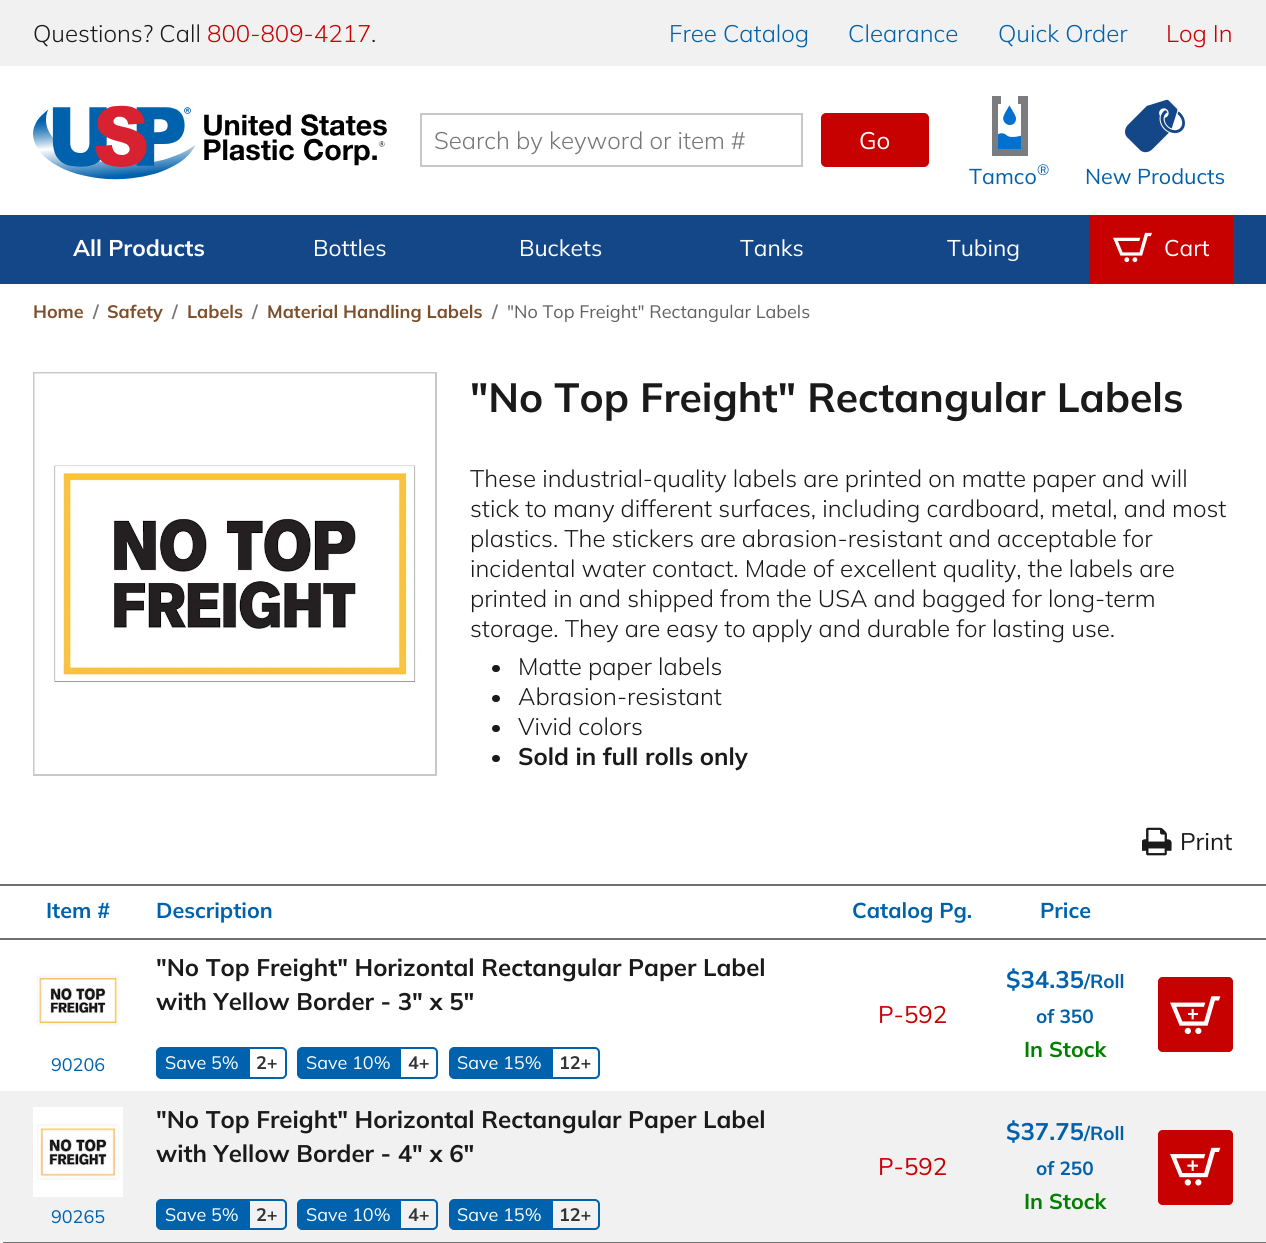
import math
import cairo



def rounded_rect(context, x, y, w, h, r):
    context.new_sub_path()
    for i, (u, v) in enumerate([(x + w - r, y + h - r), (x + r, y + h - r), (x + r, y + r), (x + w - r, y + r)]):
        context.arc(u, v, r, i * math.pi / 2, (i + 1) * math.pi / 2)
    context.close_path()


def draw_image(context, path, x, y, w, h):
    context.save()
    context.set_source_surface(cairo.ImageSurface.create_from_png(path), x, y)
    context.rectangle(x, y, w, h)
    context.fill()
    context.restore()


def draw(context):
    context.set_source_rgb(1, 1, 1)
    context.paint()
    context.set_source_rgb(241 / 255, 241 / 255, 241 / 255)
    context.rectangle(0, 0, 1266, 66)
    context.fill()
    draw_image(context, "images/1.png", 33, 105, 354, 75)
    context.rectangle(421, 114, 381, 52)
    context.set_source_rgb(200 / 255, 200 / 255, 200 / 255)
    context.stroke()
    context.set_source_rgb(199 / 255, 0, 0)
    rounded_rect(context, 822, 114, 106, 52, 4)
    context.fill_preserve()
    context.stroke()
    draw_image(context, "images/2.png", 992, 96, 36, 60)
    draw_image(context, "images/3.png", 1125, 99, 60, 54)
    context.set_source_rgb(20 / 255, 71 / 255, 136 / 255)
    context.rectangle(0, 215, 1266, 69)
    context.fill()
    context.set_source_rgb(199 / 255, 0, 0)
    context.rectangle(1089, 215, 144, 69)
    context.fill()
    draw_image(context, "images/4.png", 1113, 232, 39, 31)
    context.rectangle(34, 373, 402, 402)
    context.set_source_rgb(200 / 255, 200 / 255, 200 / 255)
    context.stroke()
    draw_image(context, "images/5.png", 34, 373, 401, 401)
    context.set_source_rgb(26 / 255, 26 / 255, 26 / 255)
    rounded_rect(context, 492, 665, 8, 7, 3.5)
    context.fill()
    rounded_rect(context, 492, 695, 8, 7, 3.5)
    context.fill()
    rounded_rect(context, 492, 725, 8, 7, 3.5)
    context.fill()
    rounded_rect(context, 492, 755, 8, 7, 3.5)
    context.fill()
    draw_image(context, "images/6.png", 1142, 827, 30, 29)
    context.set_source_rgb(112 / 255, 112 / 255, 112 / 255)
    context.rectangle(0, 1242, 1266, 1)
    context.fill()
    context.rectangle(0, 884, 1266, 2)
    context.fill()
    context.rectangle(0, 938, 1266, 2)
    context.fill()
    context.set_source_rgb(0, 97 / 255, 172 / 255)
    context.new_path()
    context.move_to(161, 1048)
    context.line_to(247, 1048)
    context.line_to(247, 1078)
    context.line_to(161, 1078)
    context.curve_to(159, 1078, 157, 1076, 157, 1074)
    context.line_to(157, 1052)
    context.curve_to(157, 1050, 159, 1048, 161, 1048)
    context.close_path()
    context.fill_preserve()
    context.stroke()
    context.new_path()
    context.move_to(249, 1048)
    context.line_to(282, 1048)
    context.curve_to(284, 1048, 286, 1050, 286, 1052)
    context.line_to(286, 1074)
    context.curve_to(286, 1076, 284, 1078, 282, 1078)
    context.line_to(249, 1078)
    context.close_path()
    context.stroke()
    context.new_path()
    context.move_to(302, 1048)
    context.line_to(398, 1048)
    context.line_to(398, 1078)
    context.line_to(302, 1078)
    context.curve_to(300, 1078, 298, 1076, 298, 1074)
    context.line_to(298, 1052)
    context.curve_to(298, 1050, 300, 1048, 302, 1048)
    context.close_path()
    context.fill_preserve()
    context.stroke()
    context.new_path()
    context.move_to(400, 1048)
    context.line_to(433, 1048)
    context.curve_to(435, 1048, 437, 1050, 437, 1052)
    context.line_to(437, 1074)
    context.curve_to(437, 1076, 435, 1078, 433, 1078)
    context.line_to(400, 1078)
    context.close_path()
    context.stroke()
    context.new_path()
    context.move_to(454, 1048)
    context.line_to(550, 1048)
    context.line_to(550, 1078)
    context.line_to(454, 1078)
    context.curve_to(452, 1078, 450, 1076, 450, 1074)
    context.line_to(450, 1052)
    context.curve_to(450, 1050, 452, 1048, 454, 1048)
    context.close_path()
    context.fill_preserve()
    context.stroke()
    context.new_path()
    context.move_to(552, 1048)
    context.line_to(595, 1048)
    context.curve_to(597, 1048, 599, 1050, 599, 1052)
    context.line_to(599, 1074)
    context.curve_to(599, 1076, 597, 1078, 595, 1078)
    context.line_to(552, 1078)
    context.close_path()
    context.stroke()
    context.set_source_rgb(199 / 255, 0, 0)
    rounded_rect(context, 1158, 977, 75, 75, 5)
    context.fill()
    draw_image(context, "images/7.png", 1170, 996, 51, 39)
    rounded_rect(context, 1159, 978, 73, 73, 4)
    context.stroke()
    draw_image(context, "images/8.png", 36, 973, 83, 55)
    context.set_source_rgb(241 / 255, 241 / 255, 241 / 255)
    context.rectangle(0, 1091, 1266, 151)
    context.fill()
    context.set_source_rgb(0, 97 / 255, 172 / 255)
    context.new_path()
    context.move_to(161, 1200)
    context.line_to(247, 1200)
    context.line_to(247, 1229)
    context.line_to(161, 1229)
    context.curve_to(159, 1229, 157, 1227, 157, 1225)
    context.line_to(157, 1204)
    context.curve_to(157, 1202, 159, 1200, 161, 1200)
    context.close_path()
    context.fill_preserve()
    context.stroke()
    context.new_path()
    context.move_to(249, 1200)
    context.line_to(282, 1200)
    context.curve_to(284, 1200, 286, 1202, 286, 1204)
    context.line_to(286, 1225)
    context.curve_to(286, 1227, 284, 1229, 282, 1229)
    context.line_to(249, 1229)
    context.close_path()
    context.stroke()
    context.new_path()
    context.move_to(302, 1200)
    context.line_to(398, 1200)
    context.line_to(398, 1229)
    context.line_to(302, 1229)
    context.curve_to(300, 1229, 298, 1227, 298, 1225)
    context.line_to(298, 1204)
    context.curve_to(298, 1202, 300, 1200, 302, 1200)
    context.close_path()
    context.fill_preserve()
    context.stroke()
    context.new_path()
    context.move_to(400, 1200)
    context.line_to(433, 1200)
    context.curve_to(435, 1200, 437, 1202, 437, 1204)
    context.line_to(437, 1225)
    context.curve_to(437, 1227, 435, 1229, 433, 1229)
    context.line_to(400, 1229)
    context.close_path()
    context.stroke()
    context.new_path()
    context.move_to(454, 1200)
    context.line_to(550, 1200)
    context.line_to(550, 1229)
    context.line_to(454, 1229)
    context.curve_to(452, 1229, 450, 1227, 450, 1225)
    context.line_to(450, 1204)
    context.curve_to(450, 1202, 452, 1200, 454, 1200)
    context.close_path()
    context.fill_preserve()
    context.stroke()
    context.new_path()
    context.move_to(552, 1200)
    context.line_to(595, 1200)
    context.curve_to(597, 1200, 599, 1202, 599, 1204)
    context.line_to(599, 1225)
    context.curve_to(599, 1227, 597, 1229, 595, 1229)
    context.line_to(552, 1229)
    context.close_path()
    context.stroke()
    context.set_source_rgb(199 / 255, 0, 0)
    rounded_rect(context, 1158, 1130, 75, 75, 5)
    context.fill()
    draw_image(context, "images/9.png", 1170, 1147, 51, 39)
    rounded_rect(context, 1159, 1131, 73, 73, 4)
    context.stroke()
    draw_image(context, "images/10.png", 33, 1107, 90, 90)
    context.set_source_rgb(245 / 255, 245 / 255, 245 / 255)
    context.rectangle(0, 1241, 3, 2)
    context.fill()
    context.select_font_face("Mulish Light")
    context.set_font_size(24)
    context.set_source_rgb(26 / 255, 26 / 255, 26 / 255)
    context.move_to(33, 42)
    context.show_text("Questions? Call")
    context.set_source_rgb(199 / 255, 0, 0)
    context.move_to(207, 42)
    context.show_text("800-809-4217")
    context.set_source_rgb(26 / 255, 26 / 255, 26 / 255)
    context.move_to(371, 42)
    context.show_text(".")
    context.set_source_rgb(0, 97 / 255, 172 / 255)
    context.move_to(669, 42)
    context.show_text("Free Catalog")
    context.move_to(848, 42)
    context.show_text("Clearance")
    context.move_to(998, 42)
    context.show_text("Quick Order")
    context.set_source_rgb(199 / 255, 0, 0)
    context.move_to(1166, 42)
    context.show_text("Log In")
    context.set_source_rgb(119 / 255, 119 / 255, 119 / 255)
    context.move_to(434, 149)
    context.show_text("Search by keyword or item #")
    context.select_font_face("Mulish")
    context.set_source_rgb(1, 1, 1)
    context.move_to(859, 149)
    context.show_text("Go")
    context.set_font_size(21.5)
    context.set_source_rgb(0, 97 / 255, 172 / 255)
    context.move_to(969, 184)
    context.show_text("Tamco")
    context.set_font_size(15)
    context.move_to(1037, 175)
    context.show_text("®")
    context.set_font_size(21.5)
    context.move_to(1085, 184)
    context.show_text("New Products")
    context.select_font_face("Mulish", cairo.FontSlant.NORMAL, cairo.FontWeight.BOLD)
    context.set_font_size(22.75)
    context.set_source_rgb(1, 1, 1)
    context.move_to(73, 256)
    context.show_text("All Products")
    context.select_font_face("Mulish")
    context.move_to(313, 256)
    context.show_text("Bottles")
    context.move_to(519, 256)
    context.show_text("Buckets")
    context.move_to(740, 256)
    context.show_text("Tanks")
    context.move_to(947, 256)
    context.show_text("Tubing")
    context.move_to(1164, 256)
    context.show_text("Cart")
    context.select_font_face("Mulish", cairo.FontSlant.NORMAL, cairo.FontWeight.BOLD)
    context.set_font_size(18)
    context.set_source_rgb(125 / 255, 79 / 255, 43 / 255)
    context.move_to(33, 318)
    context.show_text("Home")
    context.set_source_rgb(119 / 255, 119 / 255, 119 / 255)
    context.move_to(93, 318)
    context.show_text("/")
    context.set_source_rgb(125 / 255, 79 / 255, 43 / 255)
    context.move_to(107, 318)
    context.show_text("Safety")
    context.set_source_rgb(119 / 255, 119 / 255, 119 / 255)
    context.move_to(172, 318)
    context.show_text("/")
    context.set_source_rgb(125 / 255, 79 / 255, 43 / 255)
    context.move_to(187, 318)
    context.show_text("Labels")
    context.set_source_rgb(119 / 255, 119 / 255, 119 / 255)
    context.move_to(252, 318)
    context.show_text("/")
    context.set_source_rgb(125 / 255, 79 / 255, 43 / 255)
    context.move_to(267, 318)
    context.show_text("Material Handling Labels")
    context.set_source_rgb(119 / 255, 119 / 255, 119 / 255)
    context.move_to(492, 318)
    context.show_text("/")
    context.select_font_face("Mulish")
    context.set_source_rgb(96 / 255, 96 / 255, 96 / 255)
    context.move_to(507, 318)
    context.show_text("\"No Top Freight\" Rectangular Labels")
    context.select_font_face("Mulish", cairo.FontSlant.NORMAL, cairo.FontWeight.BOLD)
    context.set_font_size(40.75)
    context.set_source_rgb(26 / 255, 26 / 255, 26 / 255)
    context.move_to(470, 412)
    context.show_text("\"No Top Freight\" Rectangular Labels")
    context.select_font_face("Mulish Light")
    context.set_font_size(24)
    context.move_to(470, 487)
    context.show_text("These industrial-quality labels are printed on matte paper and will")
    context.move_to(470, 517)
    context.show_text("stick to many different surfaces, including cardboard, metal, and most")
    context.move_to(470, 547)
    context.show_text("plastics. The stickers are abrasion-resistant and acceptable for")
    context.move_to(470, 577)
    context.show_text("incidental water contact. Made of excellent quality, the labels are")
    context.move_to(470, 607)
    context.show_text("printed in and shipped from the USA and bagged for long-term")
    context.move_to(470, 637)
    context.show_text("storage. They are easy to apply and durable for lasting use.")
    context.move_to(518, 675)
    context.show_text("Matte paper labels")
    context.move_to(518, 705)
    context.show_text("Abrasion-resistant")
    context.move_to(518, 735)
    context.show_text("Vivid colors")
    context.select_font_face("Mulish", cairo.FontSlant.NORMAL, cairo.FontWeight.BOLD)
    context.move_to(518, 765)
    context.show_text("Sold in full rolls only")
    context.select_font_face("Mulish")
    context.move_to(1180, 850)
    context.show_text("Print")
    context.select_font_face("Mulish", cairo.FontSlant.NORMAL, cairo.FontWeight.BOLD)
    context.set_font_size(21.5)
    context.set_source_rgb(0, 97 / 255, 172 / 255)
    context.move_to(46, 918)
    context.show_text("Item #")
    context.move_to(156, 918)
    context.show_text("Description")
    context.move_to(852, 918)
    context.show_text("Catalog Pg.")
    context.move_to(1040, 918)
    context.show_text("Price")
    context.set_font_size(24)
    context.set_source_rgb(26 / 255, 26 / 255, 26 / 255)
    context.move_to(156, 976)
    context.show_text("\"No Top Freight\" Horizontal Rectangular Paper Label")
    context.move_to(156, 1010)
    context.show_text("with Yellow Border - 3\" x 5\"")
    context.select_font_face("Mulish")
    context.set_font_size(18)
    context.set_source_rgb(1, 1, 1)
    context.move_to(165, 1069)
    context.show_text("Save 5%")
    context.select_font_face("Mulish", cairo.FontSlant.NORMAL, cairo.FontWeight.BOLD)
    context.set_source_rgb(51 / 255, 51 / 255, 51 / 255)
    context.move_to(256, 1069)
    context.show_text("2+")
    context.select_font_face("Mulish")
    context.set_source_rgb(1, 1, 1)
    context.move_to(306, 1069)
    context.show_text("Save 10%")
    context.select_font_face("Mulish", cairo.FontSlant.NORMAL, cairo.FontWeight.BOLD)
    context.set_source_rgb(51 / 255, 51 / 255, 51 / 255)
    context.move_to(408, 1069)
    context.show_text("4+")
    context.select_font_face("Mulish")
    context.set_source_rgb(1, 1, 1)
    context.move_to(457, 1069)
    context.show_text("Save 15%")
    context.select_font_face("Mulish", cairo.FontSlant.NORMAL, cairo.FontWeight.BOLD)
    context.set_source_rgb(51 / 255, 51 / 255, 51 / 255)
    context.move_to(559, 1069)
    context.show_text("12+")
    context.select_font_face("Mulish")
    context.set_font_size(24)
    context.set_source_rgb(199 / 255, 0, 0)
    context.move_to(878, 1023)
    context.show_text("P-592")
    context.select_font_face("Mulish", cairo.FontSlant.NORMAL, cairo.FontWeight.BOLD)
    context.set_source_rgb(0, 97 / 255, 172 / 255)
    context.move_to(1006, 988)
    context.show_text("$34.35")
    context.set_font_size(19)
    context.move_to(1084, 988)
    context.show_text("/Roll")
    context.move_to(1036, 1023)
    context.show_text("of 350")
    context.set_font_size(21.5)
    context.set_source_rgb(0, 128 / 255, 0)
    context.move_to(1024, 1057)
    context.show_text("In Stock")
    context.select_font_face("Mulish")
    context.set_font_size(18)
    context.set_source_rgb(0, 97 / 255, 172 / 255)
    context.move_to(51, 1071)
    context.show_text("90206")
    context.select_font_face("Mulish", cairo.FontSlant.NORMAL, cairo.FontWeight.BOLD)
    context.set_font_size(24)
    context.set_source_rgb(26 / 255, 26 / 255, 26 / 255)
    context.move_to(156, 1128)
    context.show_text("\"No Top Freight\" Horizontal Rectangular Paper Label")
    context.move_to(156, 1162)
    context.show_text("with Yellow Border - 4\" x 6\"")
    context.select_font_face("Mulish")
    context.set_font_size(18)
    context.set_source_rgb(1, 1, 1)
    context.move_to(165, 1221)
    context.show_text("Save 5%")
    context.select_font_face("Mulish", cairo.FontSlant.NORMAL, cairo.FontWeight.BOLD)
    context.set_source_rgb(51 / 255, 51 / 255, 51 / 255)
    context.move_to(256, 1221)
    context.show_text("2+")
    context.select_font_face("Mulish")
    context.set_source_rgb(1, 1, 1)
    context.move_to(306, 1221)
    context.show_text("Save 10%")
    context.select_font_face("Mulish", cairo.FontSlant.NORMAL, cairo.FontWeight.BOLD)
    context.set_source_rgb(51 / 255, 51 / 255, 51 / 255)
    context.move_to(408, 1221)
    context.show_text("4+")
    context.select_font_face("Mulish")
    context.set_source_rgb(1, 1, 1)
    context.move_to(457, 1221)
    context.show_text("Save 15%")
    context.select_font_face("Mulish", cairo.FontSlant.NORMAL, cairo.FontWeight.BOLD)
    context.set_source_rgb(51 / 255, 51 / 255, 51 / 255)
    context.move_to(559, 1221)
    context.show_text("12+")
    context.select_font_face("Mulish")
    context.set_font_size(24)
    context.set_source_rgb(199 / 255, 0, 0)
    context.move_to(878, 1175)
    context.show_text("P-592")
    context.select_font_face("Mulish", cairo.FontSlant.NORMAL, cairo.FontWeight.BOLD)
    context.set_source_rgb(0, 97 / 255, 172 / 255)
    context.move_to(1006, 1140)
    context.show_text("$37.75")
    context.set_font_size(19)
    context.move_to(1084, 1140)
    context.show_text("/Roll")
    context.move_to(1036, 1175)
    context.show_text("of 250")
    context.set_font_size(21.5)
    context.set_source_rgb(0, 128 / 255, 0)
    context.move_to(1024, 1209)
    context.show_text("In Stock")
    context.select_font_face("Mulish")
    context.set_font_size(18)
    context.set_source_rgb(0, 97 / 255, 172 / 255)
    context.move_to(51, 1223)
    context.show_text("90265")


surface = cairo.ImageSurface(cairo.Format.RGB24, 1266, 1243)
context = cairo.Context(surface)
options = cairo.FontOptions()
options.set_hint_metrics(cairo.HintMetrics.OFF)
options.set_hint_style(cairo.HintStyle.NONE)
context.set_font_options(options)
context.set_miter_limit(4)
draw(context)
surface.write_to_png("out.png")
